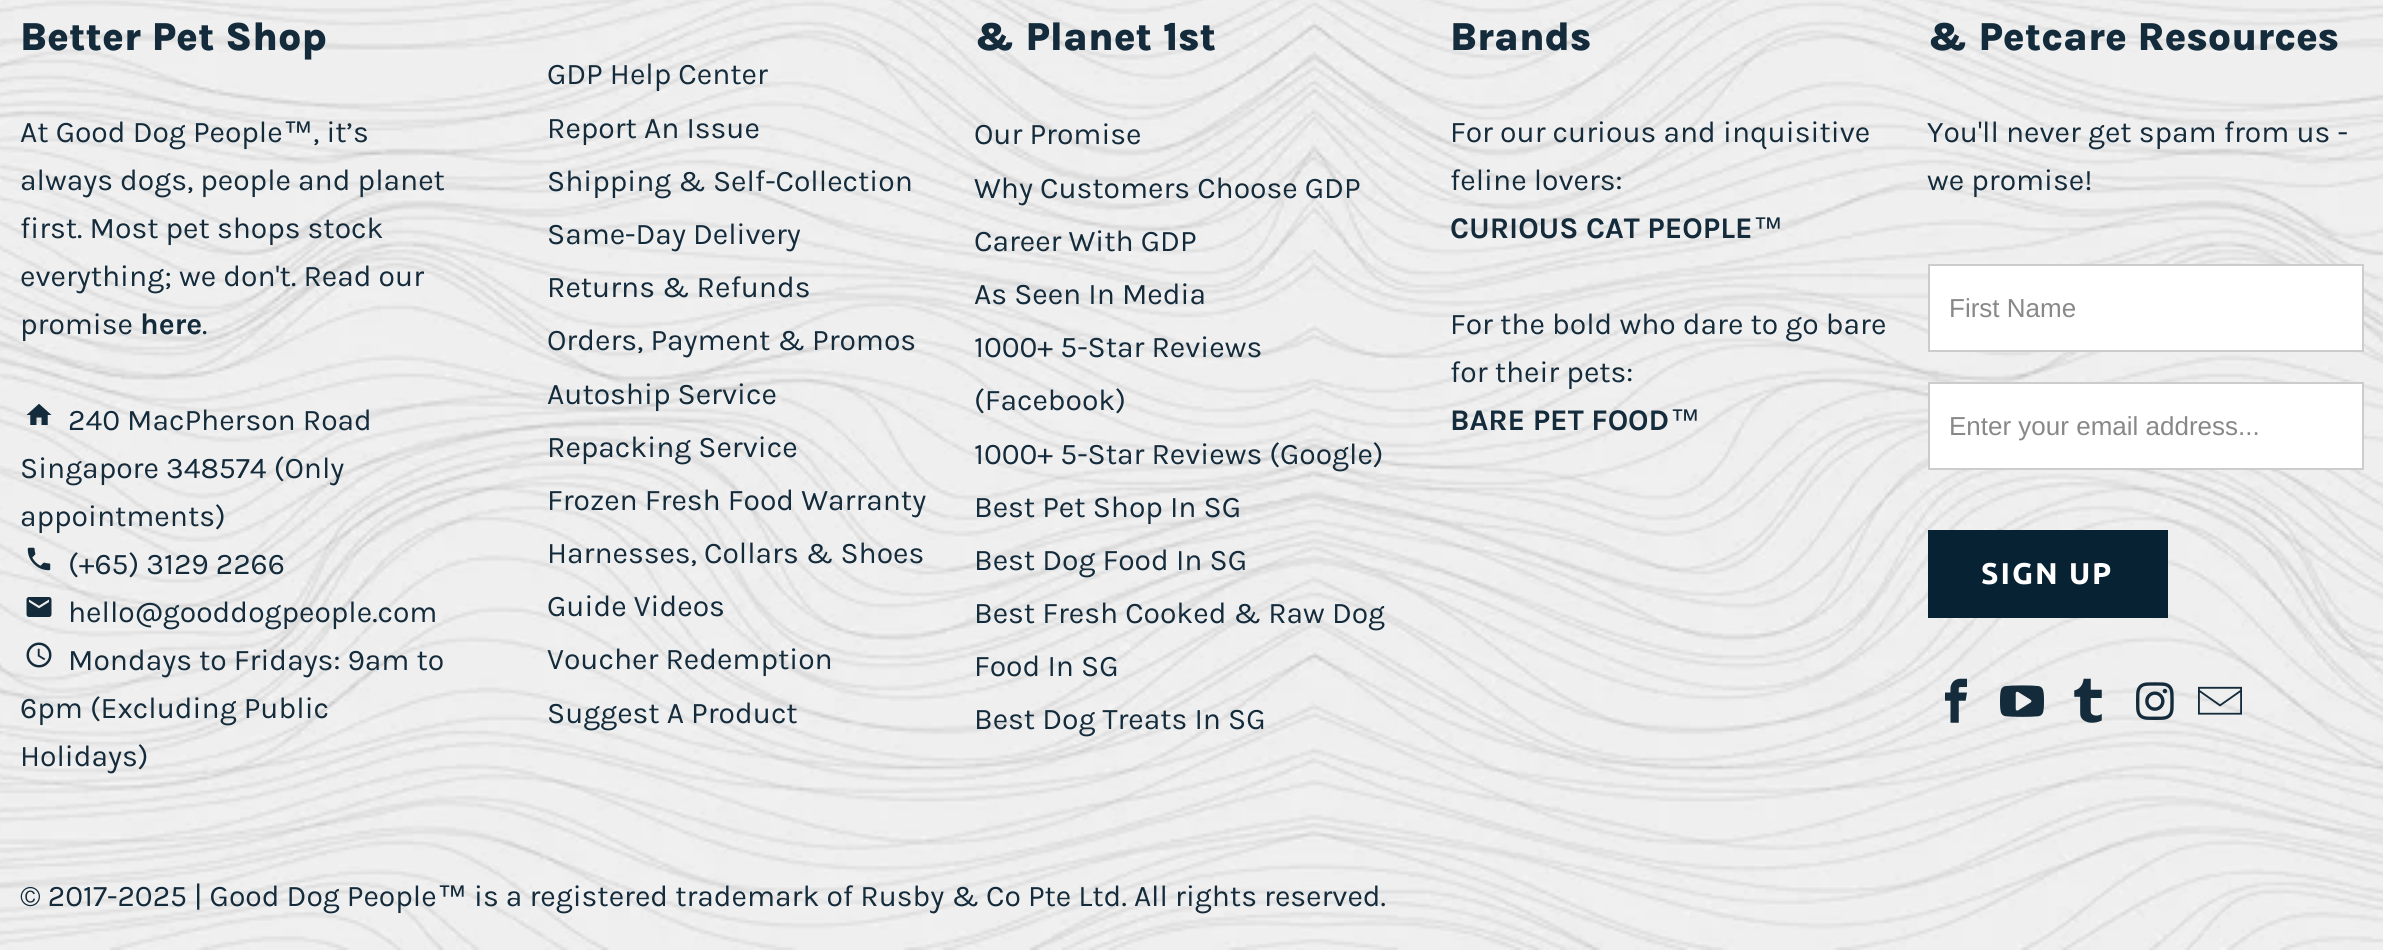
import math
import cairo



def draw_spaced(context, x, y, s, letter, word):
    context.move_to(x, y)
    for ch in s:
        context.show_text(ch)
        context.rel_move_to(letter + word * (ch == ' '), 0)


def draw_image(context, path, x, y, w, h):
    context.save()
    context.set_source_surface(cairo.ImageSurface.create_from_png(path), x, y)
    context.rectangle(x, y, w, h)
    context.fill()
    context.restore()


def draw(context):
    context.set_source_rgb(1, 1, 1)
    context.paint()
    draw_image(context, "images/1.png", 0, 0, 2383, 950)
    draw_image(context, "images/2.png", 26, 403, 26, 22)
    draw_image(context, "images/3.png", 27, 547, 24, 24)
    draw_image(context, "images/4.png", 26, 597, 26, 20)
    draw_image(context, "images/5.png", 26, 642, 26, 26)
    context.set_source_rgb(1, 1, 1)
    context.rectangle(1929, 265, 434, 86)
    context.fill_preserve()
    context.set_source_rgb(204 / 255, 204 / 255, 204 / 255)
    context.stroke()
    context.set_source_rgb(1, 1, 1)
    context.rectangle(1929, 383, 434, 86)
    context.fill_preserve()
    context.set_source_rgb(204 / 255, 204 / 255, 204 / 255)
    context.stroke()
    context.set_source_rgb(7 / 255, 34 / 255, 50 / 255)
    context.rectangle(1928, 530, 240, 88)
    context.fill()
    draw_image(context, "images/6.png", 1945, 678, 22, 45)
    draw_image(context, "images/7.png", 2000, 685, 44, 32)
    draw_image(context, "images/8.png", 2074, 678, 28, 45)
    draw_image(context, "images/9.png", 2136, 682, 38, 38)
    draw_image(context, "images/10.png", 2198, 686, 44, 29)
    context.select_font_face("Karla ExtraBold")
    context.set_font_size(40)
    context.set_source_rgb(20 / 255, 43 / 255, 59 / 255)
    context.move_to(20, 50)
    context.show_text("Better Pet Shop")
    context.select_font_face("Karla")
    context.set_font_size(30)
    context.move_to(20, 142)
    context.show_text("At Good Dog People")
    context.select_font_face("Liberation Sans")
    context.move_to(283, 142)
    context.show_text("™")
    context.select_font_face("Karla")
    context.move_to(313, 142)
    context.show_text(", it’s")
    context.move_to(20, 190)
    context.show_text("always dogs, people and planet")
    context.move_to(20, 238)
    context.show_text("first. Most pet shops stock")
    context.move_to(20, 286)
    context.show_text("everything; we don't. Read our")
    context.move_to(20, 334)
    context.show_text("promise")
    context.select_font_face("Karla", cairo.FontSlant.NORMAL, cairo.FontWeight.BOLD)
    context.move_to(140, 334)
    context.show_text("here")
    context.select_font_face("Karla")
    context.move_to(202, 334)
    context.show_text(".")
    context.move_to(68, 430)
    context.show_text("240 MacPherson Road")
    context.move_to(20, 478)
    context.show_text("Singapore 348574 (Only")
    context.move_to(20, 526)
    context.show_text("appointments)")
    context.move_to(68, 574)
    context.show_text("(+65) 3129 2266")
    context.move_to(68, 622)
    context.show_text("hello@gooddogpeople.com")
    context.move_to(68, 670)
    context.show_text("Mondays to Fridays: 9am to")
    context.move_to(20, 718)
    context.show_text("6pm (Excluding Public")
    context.move_to(20, 766)
    context.show_text("Holidays)")
    context.move_to(547, 84)
    context.show_text("GDP Help Center")
    context.move_to(547, 138)
    context.show_text("Report An Issue")
    context.move_to(547, 191)
    context.show_text("Shipping & Self-Collection")
    context.move_to(547, 244)
    context.show_text("Same-Day Delivery")
    context.move_to(547, 297)
    context.show_text("Returns & Refunds")
    context.move_to(547, 350)
    context.show_text("Orders, Payment & Promos")
    context.move_to(547, 404)
    context.show_text("Autoship Service")
    context.move_to(547, 457)
    context.show_text("Repacking Service")
    context.move_to(547, 510)
    context.show_text("Frozen Fresh Food Warranty")
    context.move_to(547, 563)
    context.show_text("Harnesses, Collars & Shoes")
    context.move_to(547, 616)
    context.show_text("Guide Videos")
    context.move_to(547, 669)
    context.show_text("Voucher Redemption")
    context.move_to(547, 723)
    context.show_text("Suggest A Product")
    context.select_font_face("Karla ExtraBold")
    context.set_font_size(40)
    context.move_to(974, 50)
    context.show_text("& Planet 1st")
    context.select_font_face("Karla")
    context.set_font_size(30)
    context.move_to(974, 144)
    context.show_text("Our Promise")
    context.move_to(974, 198)
    context.show_text("Why Customers Choose GDP")
    context.move_to(974, 251)
    context.show_text("Career With GDP")
    context.move_to(974, 304)
    context.show_text("As Seen In Media")
    context.move_to(974, 357)
    context.show_text("1000+ 5-Star Reviews")
    context.move_to(974, 410)
    context.show_text("(Facebook)")
    context.move_to(974, 464)
    context.show_text("1000+ 5-Star Reviews (Google)")
    context.move_to(974, 517)
    context.show_text("Best Pet Shop In SG")
    context.move_to(974, 570)
    context.show_text("Best Dog Food In SG")
    context.move_to(974, 623)
    context.show_text("Best Fresh Cooked & Raw Dog")
    context.move_to(974, 676)
    context.show_text("Food In SG")
    context.move_to(974, 729)
    context.show_text("Best Dog Treats In SG")
    context.select_font_face("Karla ExtraBold")
    context.set_font_size(40)
    context.move_to(1450, 50)
    context.show_text("Brands")
    context.select_font_face("Karla")
    context.set_font_size(30)
    context.move_to(1450, 142)
    context.show_text("For our curious and inquisitive")
    context.move_to(1450, 190)
    context.show_text("feline lovers:")
    context.select_font_face("Karla", cairo.FontSlant.NORMAL, cairo.FontWeight.BOLD)
    context.move_to(1450, 238)
    context.show_text("CURIOUS CAT PEOPLE")
    context.select_font_face("Liberation Sans")
    context.move_to(1753, 238)
    context.show_text("™")
    context.select_font_face("Karla")
    context.move_to(1450, 334)
    context.show_text("For the bold who dare to go bare")
    context.move_to(1450, 382)
    context.show_text("for their pets:")
    context.select_font_face("Karla", cairo.FontSlant.NORMAL, cairo.FontWeight.BOLD)
    context.move_to(1450, 430)
    context.show_text("BARE PET FOOD")
    context.select_font_face("Liberation Sans")
    context.move_to(1670, 430)
    context.show_text("™")
    context.select_font_face("Karla ExtraBold")
    context.set_font_size(40)
    context.move_to(1927, 50)
    context.show_text("& Petcare Resources")
    context.select_font_face("Karla")
    context.set_font_size(30)
    context.move_to(1927, 142)
    context.show_text("You'll never get spam from us -")
    context.move_to(1927, 190)
    context.show_text("we promise!")
    context.select_font_face("Liberation Sans")
    context.set_font_size(26)
    context.set_source_rgb(136 / 255, 136 / 255, 136 / 255)
    context.move_to(1949, 317)
    context.show_text("First Name")
    context.move_to(1949, 435)
    context.show_text("Enter your email address...")
    context.select_font_face("Ubuntu", cairo.FontSlant.NORMAL, cairo.FontWeight.BOLD)
    context.set_font_size(30)
    context.set_source_rgb(1, 1, 1)
    draw_spaced(context, 1981, 584, "SIGN UP", 2, 0)
    context.select_font_face("Karla")
    context.set_source_rgb(20 / 255, 43 / 255, 59 / 255)
    context.move_to(20, 906)
    context.show_text("© 2017-2025 | Good Dog People")
    context.select_font_face("Liberation Sans")
    context.move_to(437, 906)
    context.show_text("™")
    context.select_font_face("Karla")
    context.move_to(474, 906)
    context.show_text("is a registered trademark of Rusby & Co Pte Ltd. All rights reserved.")


surface = cairo.ImageSurface(cairo.Format.RGB24, 2383, 950)
context = cairo.Context(surface)
options = cairo.FontOptions()
options.set_hint_metrics(cairo.HintMetrics.OFF)
options.set_hint_style(cairo.HintStyle.NONE)
context.set_font_options(options)
context.set_miter_limit(4)
draw(context)
surface.write_to_png("out.png")
